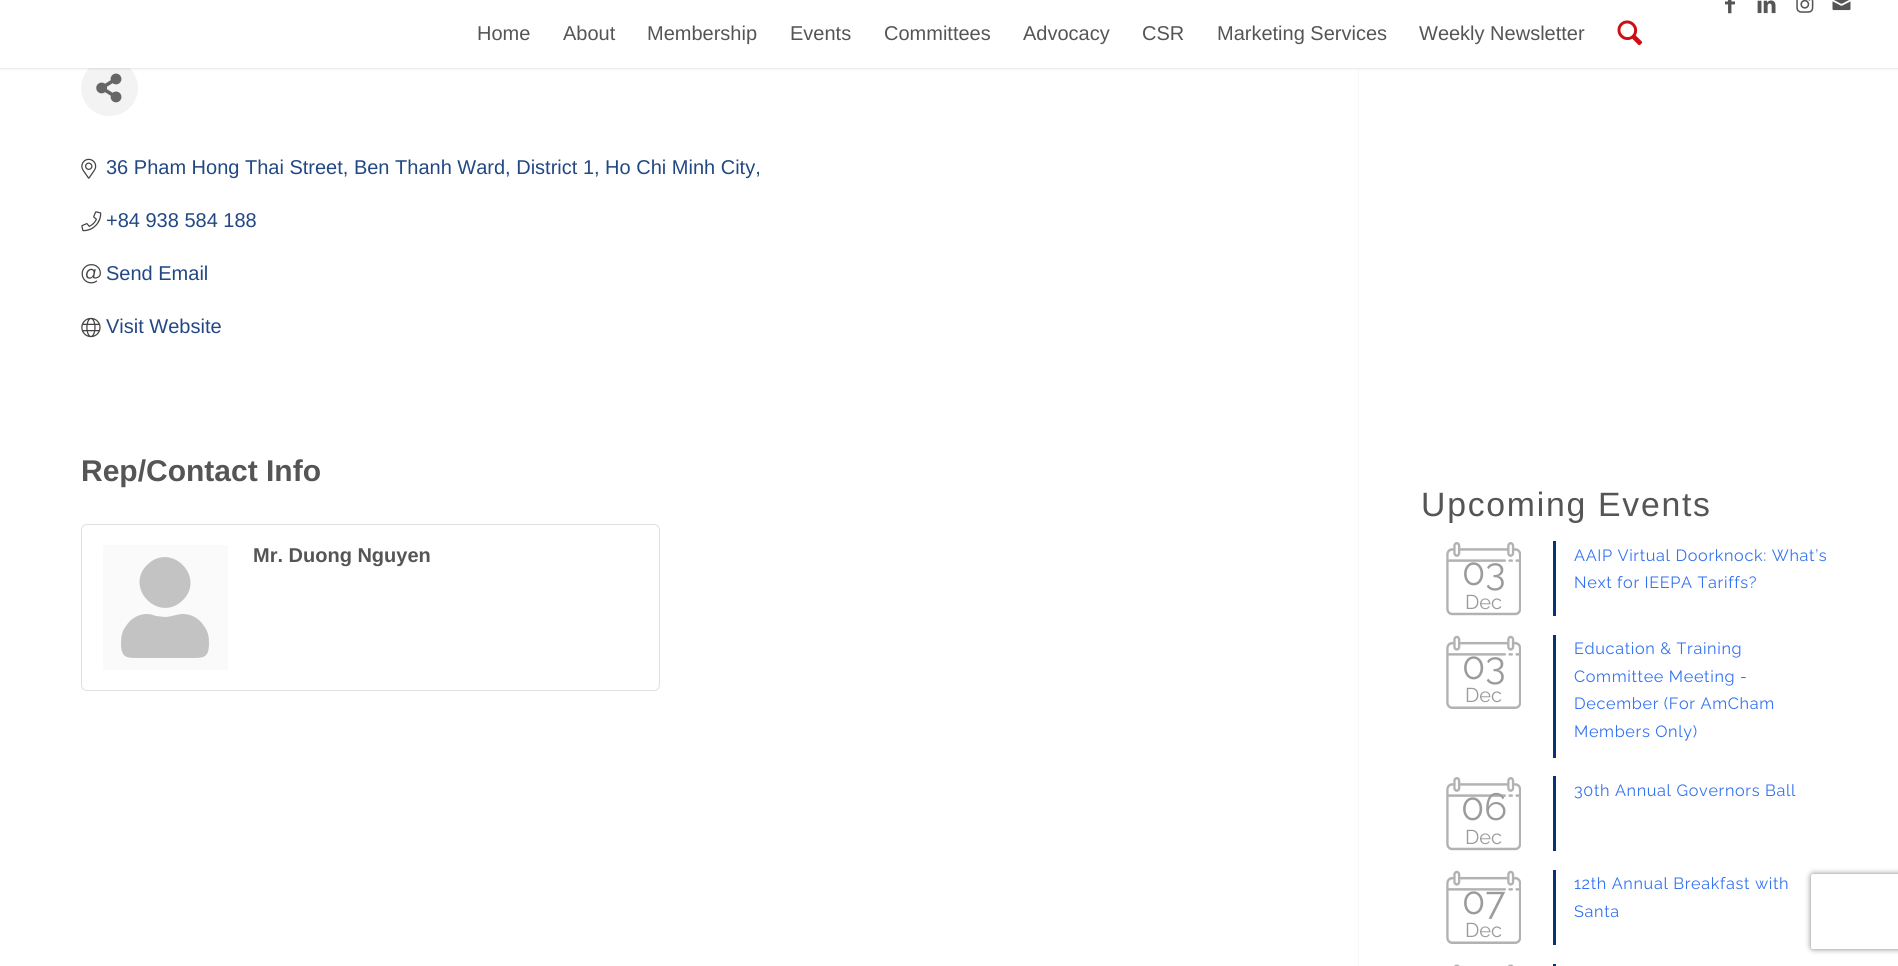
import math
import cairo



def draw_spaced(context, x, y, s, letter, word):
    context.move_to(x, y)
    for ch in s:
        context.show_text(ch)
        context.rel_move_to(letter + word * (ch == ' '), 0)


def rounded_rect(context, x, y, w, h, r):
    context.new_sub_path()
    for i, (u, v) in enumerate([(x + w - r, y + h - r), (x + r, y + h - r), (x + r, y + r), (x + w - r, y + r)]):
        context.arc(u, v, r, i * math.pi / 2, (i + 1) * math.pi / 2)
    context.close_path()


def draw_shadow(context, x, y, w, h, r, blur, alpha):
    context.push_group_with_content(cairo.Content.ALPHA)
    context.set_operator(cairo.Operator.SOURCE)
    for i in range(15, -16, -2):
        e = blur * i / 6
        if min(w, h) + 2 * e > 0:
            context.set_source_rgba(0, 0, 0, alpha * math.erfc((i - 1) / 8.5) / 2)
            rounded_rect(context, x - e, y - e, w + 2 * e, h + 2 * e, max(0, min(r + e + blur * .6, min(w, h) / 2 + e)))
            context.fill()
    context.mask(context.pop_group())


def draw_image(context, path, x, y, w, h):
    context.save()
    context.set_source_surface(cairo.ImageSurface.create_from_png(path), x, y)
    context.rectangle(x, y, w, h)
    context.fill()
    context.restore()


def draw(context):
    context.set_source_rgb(1, 1, 1)
    context.paint()
    context.set_source_rgb(243 / 255, 243 / 255, 243 / 255)
    rounded_rect(context, 81, 60, 57, 56, 28)
    context.fill()
    context.set_source_rgb(248 / 255, 248 / 255, 248 / 255)
    context.rectangle(1358, 68, 1, 898)
    context.fill()
    context.set_source_rgb(0, 0, 0)
    draw_shadow(context, -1, -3, 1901, 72, 0, 1, 0.1)
    context.set_source_rgb(1, 1, 1)
    context.rectangle(0, 0, 1898, 68)
    context.fill()
    draw_image(context, "images/1.png", 1725, 0, 10, 14)
    draw_image(context, "images/2.png", 1757, 0, 19, 14)
    draw_image(context, "images/3.png", 1796, 0, 18, 13)
    draw_image(context, "images/4.png", 1832, 0, 19, 11)
    draw_image(context, "images/5.png", 1617, 20, 26, 26)
    draw_image(context, "images/6.png", 96, 73, 26, 30)
    draw_image(context, "images/7.png", 81, 158, 16, 21)
    draw_image(context, "images/8.png", 81, 211, 21, 21)
    draw_image(context, "images/9.png", 81, 264, 20, 20)
    draw_image(context, "images/10.png", 81, 317, 20, 21)
    rounded_rect(context, 81.5, 524.5, 578, 166, 5.5)
    context.set_source_rgb(223 / 255, 223 / 255, 223 / 255)
    context.set_line_width(1)
    context.stroke()
    context.set_source_rgb(250 / 255, 250 / 255, 250 / 255)
    context.rectangle(103, 545, 125, 125)
    context.fill()
    context.set_source_rgb(195 / 255, 195 / 255, 195 / 255)
    context.new_path()
    context.move_to(183, 600)
    context.curve_to(159, 624, 124, 588, 147, 565)
    context.curve_to(171, 541, 206, 577, 183, 600)
    context.close_path()
    context.move_to(183, 614)
    context.curve_to(191, 614, 199, 618, 204, 626)
    context.curve_to(208, 631, 209, 637, 209, 643)
    context.curve_to(209, 659, 203, 658, 188, 658)
    context.line_to(142, 658)
    context.curve_to(127, 658, 121, 659, 121, 643)
    context.curve_to(121, 637, 122, 631, 126, 626)
    context.curve_to(131, 618, 139, 614, 147, 614)
    context.curve_to(151, 614, 153, 615, 156, 616)
    context.line_to(165, 617)
    context.curve_to(171, 617, 177, 614, 183, 614)
    context.close_path()
    context.fill()
    draw_image(context, "images/11.png", 1446, 542, 75, 74)
    context.set_source_rgb(7 / 255, 49 / 255, 122 / 255)
    context.rectangle(1553, 541, 3, 75)
    context.fill()
    draw_image(context, "images/12.png", 1446, 635, 75, 74)
    context.rectangle(1553, 635, 3, 123)
    context.fill()
    context.rectangle(1553, 776, 3, 75)
    context.fill()
    draw_image(context, "images/11.png", 1446, 777, 75, 74)
    draw_image(context, "images/12.png", 1446, 870, 75, 74)
    context.rectangle(1553, 870, 3, 75)
    context.fill()
    draw_image(context, "images/13.png", 1454, 964, 60, 2)
    context.rectangle(1553, 964, 3, 2)
    context.fill()
    context.save()
    context.set_fill_rule(cairo.FillRule.EVEN_ODD)
    context.new_path()
    context.move_to(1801, 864)
    context.line_to(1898, 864)
    context.line_to(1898, 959)
    context.line_to(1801, 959)
    context.close_path()
    context.move_to(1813.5, 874)
    context.line_to(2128.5, 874)
    context.curve_to(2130, 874, 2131, 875, 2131, 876.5)
    context.line_to(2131, 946.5)
    context.curve_to(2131, 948, 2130, 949, 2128.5, 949)
    context.line_to(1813.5, 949)
    context.curve_to(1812, 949, 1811, 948, 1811, 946.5)
    context.line_to(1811, 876.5)
    context.curve_to(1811, 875, 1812, 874, 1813.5, 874)
    context.close_path()
    context.clip()
    context.set_source_rgb(128 / 255, 128 / 255, 128 / 255)
    draw_shadow(context, 1811, 874, 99, 75, 2.5, 3, 1)
    context.restore()
    context.select_font_face("Liberation Sans")
    context.set_font_size(20)
    context.set_source_rgb(85 / 255, 85 / 255, 85 / 255)
    context.move_to(477, 40)
    context.show_text("Home")
    context.move_to(563, 40)
    context.show_text("About")
    context.move_to(647, 40)
    context.show_text("Membership")
    context.move_to(790, 40)
    context.show_text("Events")
    context.move_to(884, 40)
    context.show_text("Committees")
    context.move_to(1023, 40)
    context.show_text("Advocacy")
    context.move_to(1142, 40)
    context.show_text("CSR")
    context.move_to(1217, 40)
    context.show_text("Marketing Services")
    context.move_to(1419, 40)
    context.show_text("Weekly Newsletter")
    context.set_source_rgb(34 / 255, 72 / 255, 132 / 255)
    context.move_to(106, 174)
    context.show_text("36 Pham Hong Thai Street, Ben Thanh Ward, District 1, Ho Chi Minh City,")
    context.move_to(106, 227)
    context.show_text("+84 938 584 188")
    context.move_to(106, 280)
    context.show_text("Send Email")
    context.move_to(106, 333)
    context.show_text("Visit Website")
    context.select_font_face("Liberation Sans", cairo.FontSlant.NORMAL, cairo.FontWeight.BOLD)
    context.set_font_size(30)
    context.set_source_rgb(85 / 255, 85 / 255, 85 / 255)
    context.move_to(81, 481)
    context.show_text("Rep/Contact Info")
    context.set_font_size(20)
    context.move_to(253, 562)
    context.show_text("Mr. Duong Nguyen")
    context.select_font_face("Liberation Sans")
    context.set_font_size(33.75)
    draw_spaced(context, 1421, 516, "Upcoming Events", 1.75, 0)
    context.select_font_face("Raleway")
    context.set_font_size(38)
    context.set_source_rgb(155 / 255, 155 / 255, 155 / 255)
    context.move_to(1462, 585)
    context.show_text("03")
    context.set_font_size(20)
    context.move_to(1465, 609)
    context.show_text("Dec")
    context.set_font_size(16.25)
    context.set_source_rgb(51 / 255, 114 / 255, 240 / 255)
    draw_spaced(context, 1574, 561, "AAIP Virtual Doorknock: What’s", 0.65, 0)
    draw_spaced(context, 1574, 588, "Next for IEEPA Tariffs?", 0.65, 0)
    context.set_font_size(38)
    context.set_source_rgb(155 / 255, 155 / 255, 155 / 255)
    context.move_to(1462, 679)
    context.show_text("03")
    context.set_font_size(20)
    context.move_to(1465, 702)
    context.show_text("Dec")
    context.set_font_size(16.25)
    context.set_source_rgb(51 / 255, 114 / 255, 240 / 255)
    draw_spaced(context, 1574, 654, "Education & Training", 0.65, 0)
    draw_spaced(context, 1574, 682, "Committee Meeting -", 0.65, 0)
    draw_spaced(context, 1574, 709, "December (For AmCham", 0.65, 0)
    draw_spaced(context, 1574, 737, "Members Only)", 0.65, 0)
    draw_spaced(context, 1574, 796, "30th Annual Governors Ball", 0.65, 0)
    context.set_font_size(38)
    context.set_source_rgb(155 / 255, 155 / 255, 155 / 255)
    context.move_to(1461, 820)
    context.show_text("06")
    context.set_font_size(20)
    context.move_to(1465, 844)
    context.show_text("Dec")
    context.set_font_size(38)
    context.move_to(1462, 914)
    context.show_text("07")
    context.set_font_size(20)
    context.move_to(1465, 937)
    context.show_text("Dec")
    context.set_font_size(16.25)
    context.set_source_rgb(51 / 255, 114 / 255, 240 / 255)
    draw_spaced(context, 1574, 889, "12th Annual Breakfast with", 0.65, 0)
    draw_spaced(context, 1574, 917, "Santa", 0.65, 0)


surface = cairo.ImageSurface(cairo.Format.RGB24, 1898, 966)
context = cairo.Context(surface)
options = cairo.FontOptions()
options.set_hint_metrics(cairo.HintMetrics.OFF)
options.set_hint_style(cairo.HintStyle.NONE)
context.set_font_options(options)
context.set_miter_limit(4)
draw(context)
surface.write_to_png("out.png")
